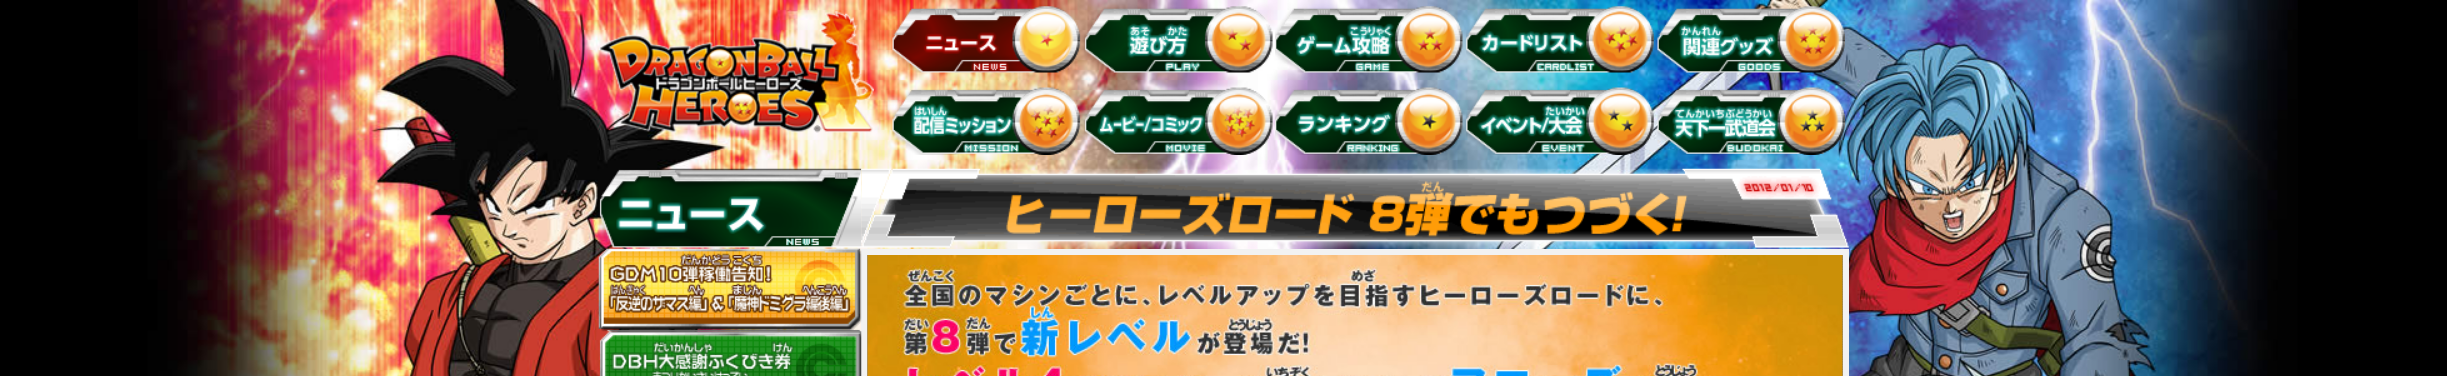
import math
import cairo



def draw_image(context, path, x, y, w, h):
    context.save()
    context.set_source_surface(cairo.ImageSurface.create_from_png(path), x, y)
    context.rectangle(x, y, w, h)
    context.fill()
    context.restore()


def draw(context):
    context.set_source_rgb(0, 0, 0)
    context.paint()
    draw_image(context, "images/1.png", 138, 0, 2160, 376)
    draw_image(context, "images/2.png", 598, 11, 276, 122)
    draw_image(context, "images/3.png", 892, 6, 189, 67)
    draw_image(context, "images/4.png", 1083, 6, 190, 67)
    draw_image(context, "images/5.png", 1275, 6, 188, 67)
    draw_image(context, "images/6.png", 1466, 6, 188, 67)
    draw_image(context, "images/7.png", 1657, 6, 188, 67)
    draw_image(context, "images/8.png", 892, 87, 189, 68)
    draw_image(context, "images/9.png", 1083, 87, 190, 68)
    draw_image(context, "images/10.png", 1275, 87, 188, 68)
    draw_image(context, "images/11.png", 1466, 87, 188, 68)
    draw_image(context, "images/12.png", 1657, 87, 188, 68)
    draw_image(context, "images/13.png", 599, 168, 263, 80)
    context.set_source_rgb(242 / 255, 242 / 255, 242 / 255)
    context.rectangle(861, 249, 988, 127)
    context.fill()
    draw_image(context, "images/14.png", 598, 248, 264, 84)
    draw_image(context, "images/15.png", 599, 331, 263, 45)
    draw_image(context, "images/16.png", 861, 168, 988, 80)
    draw_image(context, "images/17.png", 867, 255, 976, 121)
    draw_image(context, "images/18.png", 867, 255, 976, 121)


surface = cairo.ImageSurface(cairo.Format.RGB24, 2447, 376)
context = cairo.Context(surface)
options = cairo.FontOptions()
options.set_hint_metrics(cairo.HintMetrics.OFF)
options.set_hint_style(cairo.HintStyle.NONE)
context.set_font_options(options)
context.set_miter_limit(4)
draw(context)
surface.write_to_png("out.png")
